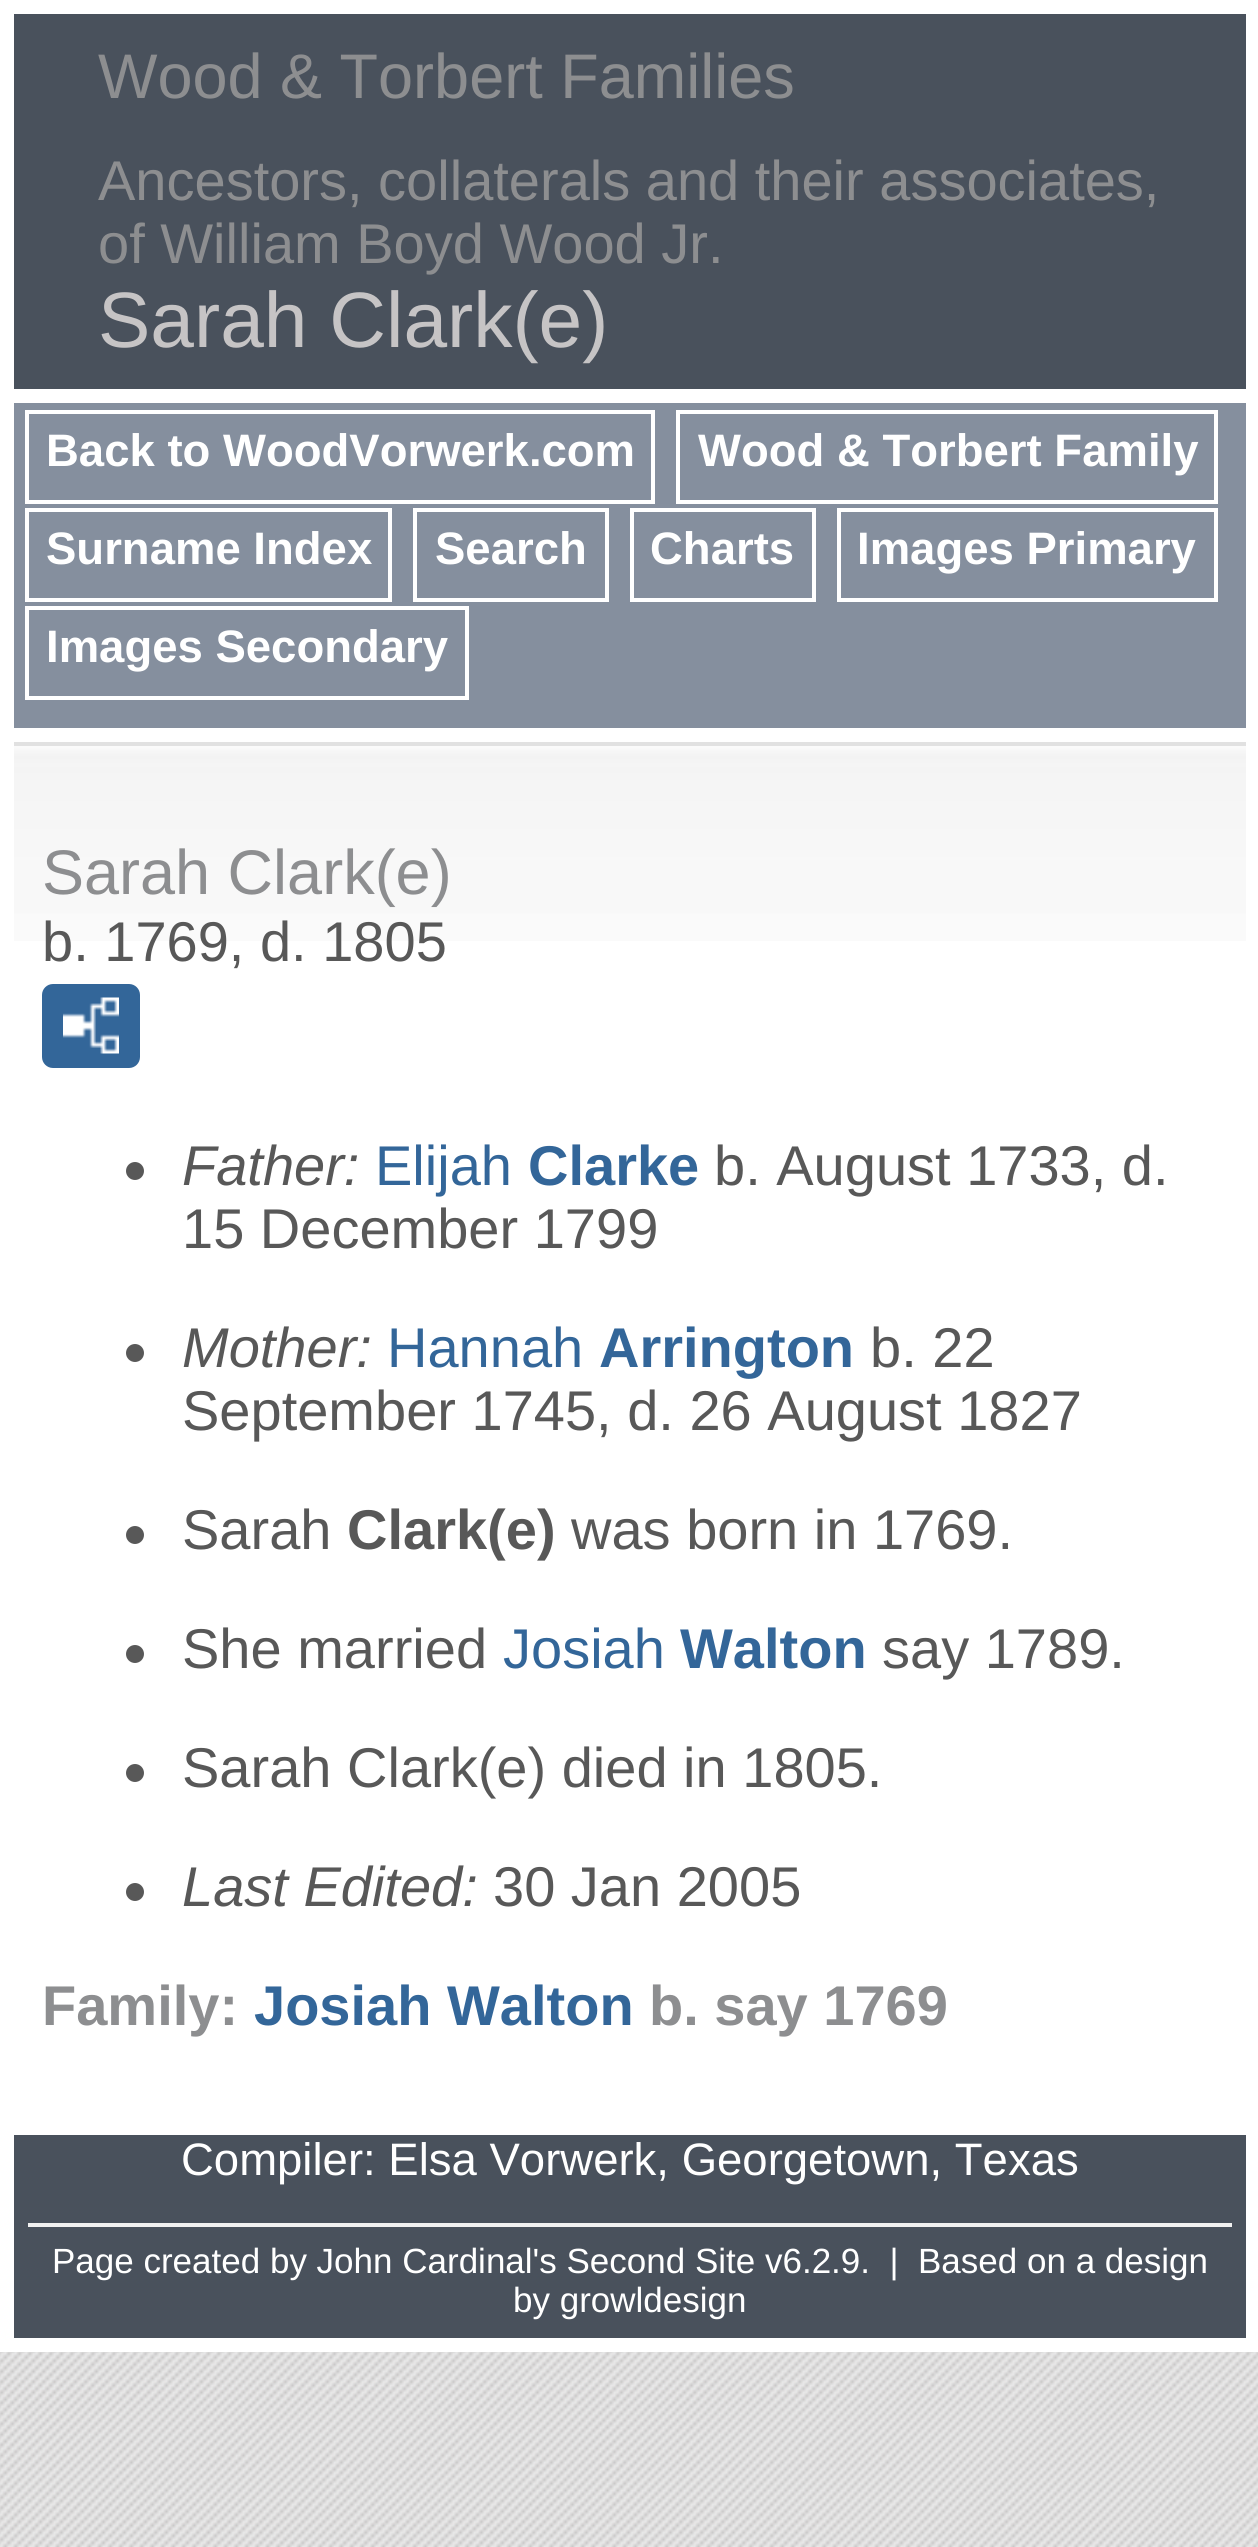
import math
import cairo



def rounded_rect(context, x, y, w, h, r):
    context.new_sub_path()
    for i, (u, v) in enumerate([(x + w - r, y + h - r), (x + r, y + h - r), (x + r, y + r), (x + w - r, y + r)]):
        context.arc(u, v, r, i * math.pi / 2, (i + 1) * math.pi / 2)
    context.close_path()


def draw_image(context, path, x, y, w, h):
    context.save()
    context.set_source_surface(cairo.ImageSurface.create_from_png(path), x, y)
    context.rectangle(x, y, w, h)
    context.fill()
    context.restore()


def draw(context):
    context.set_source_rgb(1, 1, 1)
    context.paint()
    draw_image(context, "images/1.png", 0, 2352, 1258, 195)
    context.set_source_rgb(73 / 255, 81 / 255, 92 / 255)
    context.rectangle(14, 14, 1232, 375)
    context.fill()
    context.set_source_rgb(133 / 255, 143 / 255, 158 / 255)
    context.rectangle(14, 403, 1232, 325)
    context.fill()
    context.rectangle(27, 412, 626, 90)
    context.set_source_rgb(1, 1, 1)
    context.set_line_width(4)
    context.stroke()
    context.rectangle(678, 412, 538, 90)
    context.stroke()
    context.rectangle(27, 510, 363, 90)
    context.stroke()
    context.rectangle(415, 510, 192, 90)
    context.stroke()
    context.rectangle(632, 510, 182, 90)
    context.stroke()
    context.rectangle(839, 510, 377, 90)
    context.stroke()
    context.rectangle(27, 608, 440, 90)
    context.stroke()
    draw_image(context, "images/2.png", 14, 746, 1232, 195)
    context.set_source_rgb(225 / 255, 225 / 255, 225 / 255)
    context.rectangle(14, 742, 1232, 4)
    context.fill()
    context.set_source_rgb(51 / 255, 102 / 255, 153 / 255)
    rounded_rect(context, 42, 984, 98, 84, 11)
    context.fill()
    draw_image(context, "images/3.png", 63, 997, 56, 57)
    context.set_source_rgb(88 / 255, 88 / 255, 88 / 255)
    context.arc(135, 1171, 9, 0, 2 * math.pi)
    context.fill()
    context.arc(135, 1353, 9, 0, 2 * math.pi)
    context.fill()
    context.arc(135, 1535, 9, 0, 2 * math.pi)
    context.fill()
    context.arc(135, 1654, 9, 0, 2 * math.pi)
    context.fill()
    context.arc(135, 1773, 9, 0, 2 * math.pi)
    context.fill()
    context.arc(135, 1892, 9, 0, 2 * math.pi)
    context.fill()
    context.set_source_rgb(73 / 255, 81 / 255, 92 / 255)
    context.rectangle(14, 2135, 1232, 203)
    context.fill()
    context.set_source_rgb(241 / 255, 241 / 255, 241 / 255)
    context.rectangle(28, 2223, 1204, 4)
    context.fill()
    context.select_font_face("Liberation Sans")
    context.set_font_size(63)
    context.set_source_rgb(141 / 255, 142 / 255, 144 / 255)
    context.move_to(98, 98)
    context.show_text("Wood & Torbert Families")
    context.set_font_size(56)
    context.move_to(98, 200)
    context.show_text("Ancestors, collaterals and their associates,")
    context.move_to(98, 263)
    context.show_text("of William Boyd Wood Jr.")
    context.set_font_size(78.5)
    context.set_source_rgb(198 / 255, 196 / 255, 197 / 255)
    context.move_to(98, 347)
    context.show_text("Sarah Clark(e)")
    context.select_font_face("Liberation Sans", cairo.FontSlant.NORMAL, cairo.FontWeight.BOLD)
    context.set_font_size(45.5)
    context.set_source_rgb(1, 1, 1)
    context.move_to(46, 466)
    context.show_text("Back to WoodVorwerk.com")
    context.move_to(698, 466)
    context.show_text("Wood & Torbert Family")
    context.move_to(46, 564)
    context.show_text("Surname Index")
    context.move_to(435, 564)
    context.show_text("Search")
    context.move_to(650, 564)
    context.show_text("Charts")
    context.move_to(857, 564)
    context.show_text("Images Primary")
    context.move_to(46, 662)
    context.show_text("Images Secondary")
    context.select_font_face("Liberation Sans")
    context.set_font_size(63)
    context.set_source_rgb(141 / 255, 142 / 255, 144 / 255)
    context.move_to(42, 894)
    context.show_text("Sarah Clark(e)")
    context.set_font_size(56)
    context.set_source_rgb(88 / 255, 88 / 255, 88 / 255)
    context.move_to(42, 961)
    context.show_text("b. 1769, d. 1805")
    context.select_font_face("Liberation Sans", cairo.FontSlant.ITALIC)
    context.move_to(182, 1185)
    context.show_text("Father:")
    context.select_font_face("Liberation Sans")
    context.set_source_rgb(51 / 255, 102 / 255, 153 / 255)
    context.move_to(375, 1185)
    context.show_text("Elijah")
    context.select_font_face("Liberation Sans", cairo.FontSlant.NORMAL, cairo.FontWeight.BOLD)
    context.move_to(528, 1185)
    context.show_text("Clarke")
    context.select_font_face("Liberation Sans")
    context.set_source_rgb(88 / 255, 88 / 255, 88 / 255)
    context.move_to(714, 1185)
    context.show_text("b. August 1733, d.")
    context.move_to(182, 1248)
    context.show_text("15 December 1799")
    context.select_font_face("Liberation Sans", cairo.FontSlant.ITALIC)
    context.move_to(182, 1367)
    context.show_text("Mother:")
    context.select_font_face("Liberation Sans")
    context.set_source_rgb(51 / 255, 102 / 255, 153 / 255)
    context.move_to(387, 1367)
    context.show_text("Hannah")
    context.select_font_face("Liberation Sans", cairo.FontSlant.NORMAL, cairo.FontWeight.BOLD)
    context.move_to(599, 1367)
    context.show_text("Arrington")
    context.select_font_face("Liberation Sans")
    context.set_source_rgb(88 / 255, 88 / 255, 88 / 255)
    context.move_to(870, 1367)
    context.show_text("b. 22")
    context.move_to(182, 1430)
    context.show_text("September 1745, d. 26 August 1827")
    context.move_to(182, 1549)
    context.show_text("Sarah")
    context.select_font_face("Liberation Sans", cairo.FontSlant.NORMAL, cairo.FontWeight.BOLD)
    context.move_to(347, 1549)
    context.show_text("Clark(e)")
    context.select_font_face("Liberation Sans")
    context.move_to(571, 1549)
    context.show_text("was born in 1769.")
    context.move_to(182, 1668)
    context.show_text("She married")
    context.set_source_rgb(51 / 255, 102 / 255, 153 / 255)
    context.move_to(503, 1668)
    context.show_text("Josiah")
    context.select_font_face("Liberation Sans", cairo.FontSlant.NORMAL, cairo.FontWeight.BOLD)
    context.move_to(680, 1668)
    context.show_text("Walton")
    context.select_font_face("Liberation Sans")
    context.set_source_rgb(88 / 255, 88 / 255, 88 / 255)
    context.move_to(882, 1668)
    context.show_text("say 1789.")
    context.move_to(182, 1787)
    context.show_text("Sarah Clark(e) died in 1805.")
    context.select_font_face("Liberation Sans", cairo.FontSlant.ITALIC)
    context.move_to(182, 1906)
    context.show_text("Last Edited:")
    context.select_font_face("Liberation Sans")
    context.move_to(493, 1906)
    context.show_text("30 Jan 2005")
    context.select_font_face("Liberation Sans", cairo.FontSlant.NORMAL, cairo.FontWeight.BOLD)
    context.set_source_rgb(141 / 255, 142 / 255, 144 / 255)
    context.move_to(42, 2025)
    context.show_text("Family:")
    context.set_source_rgb(51 / 255, 102 / 255, 153 / 255)
    context.move_to(254, 2025)
    context.show_text("Josiah Walton")
    context.set_source_rgb(141 / 255, 142 / 255, 144 / 255)
    context.move_to(649, 2025)
    context.show_text("b. say 1769")
    context.select_font_face("Liberation Sans")
    context.set_font_size(45.5)
    context.set_source_rgb(1, 1, 1)
    context.move_to(181, 2175)
    context.show_text("Compiler: Elsa Vorwerk, Georgetown, Texas")
    context.set_font_size(35)
    context.move_to(52, 2273)
    context.show_text("Page created by John Cardinal's Second Site v6.2.9.  |  Based on a design")
    context.move_to(513, 2312)
    context.show_text("by growldesign")


surface = cairo.ImageSurface(cairo.Format.RGB24, 1258, 2547)
context = cairo.Context(surface)
options = cairo.FontOptions()
options.set_hint_metrics(cairo.HintMetrics.OFF)
options.set_hint_style(cairo.HintStyle.NONE)
context.set_font_options(options)
context.set_miter_limit(4)
draw(context)
surface.write_to_png("out.png")
